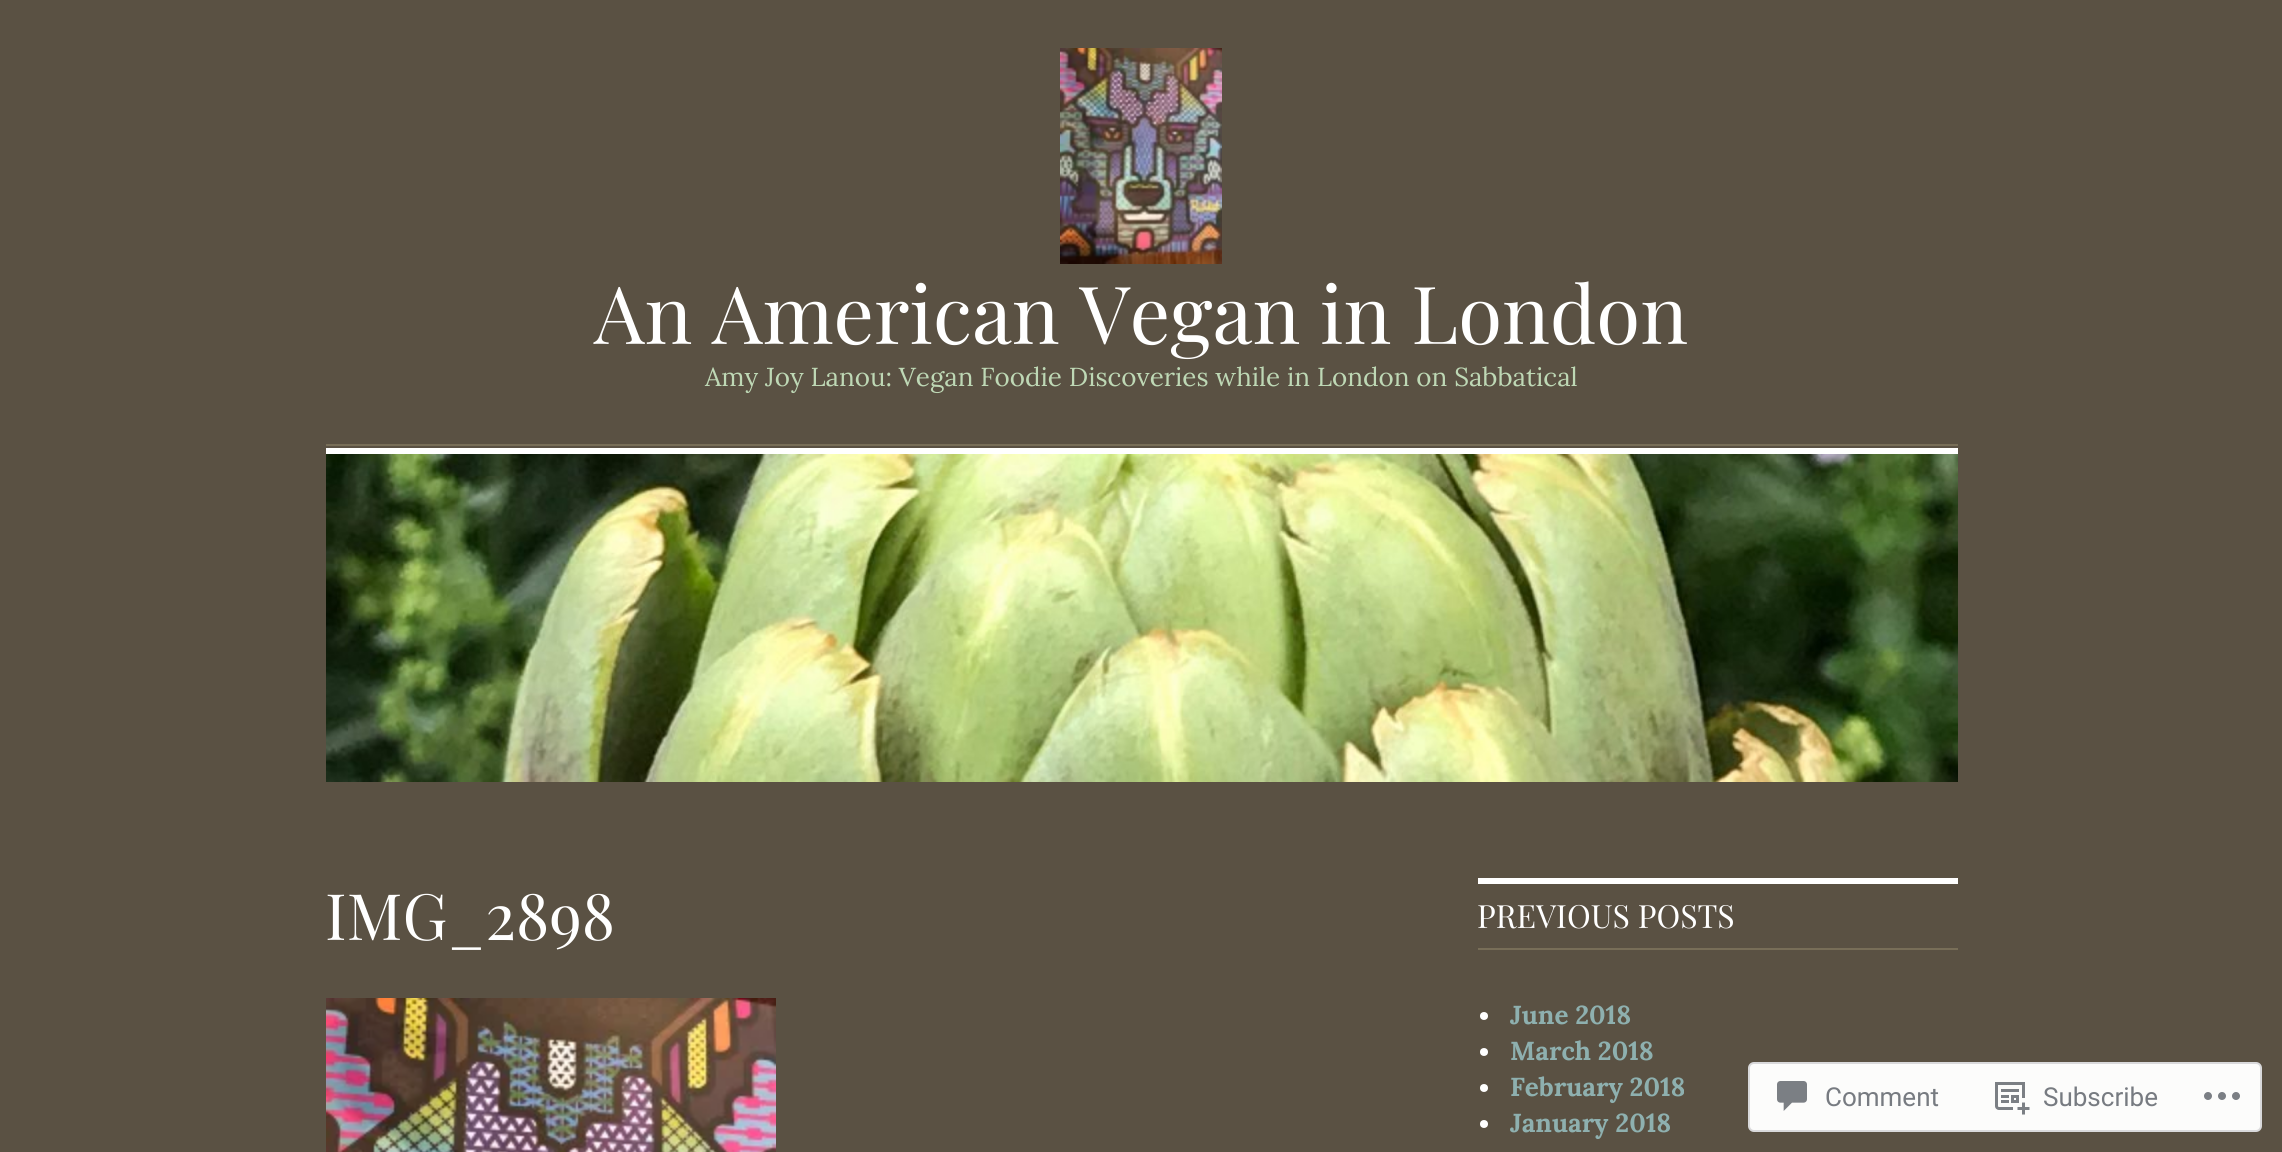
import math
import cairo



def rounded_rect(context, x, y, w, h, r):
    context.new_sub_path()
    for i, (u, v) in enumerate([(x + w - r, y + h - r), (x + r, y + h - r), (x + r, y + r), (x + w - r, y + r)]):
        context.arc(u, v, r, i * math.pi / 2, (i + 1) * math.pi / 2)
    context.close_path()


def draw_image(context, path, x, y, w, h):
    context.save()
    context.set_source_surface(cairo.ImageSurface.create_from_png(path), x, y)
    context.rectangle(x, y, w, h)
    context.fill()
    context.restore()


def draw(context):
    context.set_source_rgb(90 / 255, 81 / 255, 67 / 255)
    context.paint()
    draw_image(context, "images/1.png", 1060, 48, 162, 216)
    context.set_source_rgb(120 / 255, 110 / 255, 88 / 255)
    context.rectangle(326, 444, 1632, 2)
    context.fill()
    context.set_source_rgb(1, 1, 1)
    context.rectangle(326, 448, 1632, 6)
    context.fill()
    draw_image(context, "images/2.png", 326, 454, 1632, 328)
    draw_image(context, "images/3.png", 326, 998, 450, 154)
    context.rectangle(1478, 878, 480, 6)
    context.fill()
    context.set_source_rgb(120 / 255, 110 / 255, 88 / 255)
    context.rectangle(1478, 948, 480, 2)
    context.fill()
    context.set_source_rgb(1, 1, 1)
    context.arc(1484, 1016, 4, 0, 2 * math.pi)
    context.fill()
    context.arc(1484, 1052, 4, 0, 2 * math.pi)
    context.fill()
    context.arc(1484, 1088, 4, 0, 2 * math.pi)
    context.fill()
    context.arc(1484, 1124, 4, 0, 2 * math.pi)
    context.fill()
    context.set_source_rgb(252 / 255, 252 / 255, 251 / 255)
    rounded_rect(context, 1749, 1063, 512, 68, 5)
    context.fill_preserve()
    context.set_source_rgb(217 / 255, 217 / 255, 219 / 255)
    context.stroke()
    draw_image(context, "images/4.png", 1777, 1081, 30, 30)
    draw_image(context, "images/5.png", 1995, 1082, 35, 33)
    draw_image(context, "images/6.png", 2204, 1092, 36, 8)
    context.select_font_face("Playfair Display")
    context.set_font_size(80)
    context.set_source_rgb(1, 1, 1)
    context.move_to(594, 344)
    context.show_text("An American Vegan in London")
    context.select_font_face("Lora")
    context.set_font_size(26)
    context.set_source_rgb(190 / 255, 216 / 255, 181 / 255)
    context.move_to(705, 386)
    context.show_text("Amy Joy Lanou: Vegan Foodie Discoveries while in London on Sabbatical")
    context.select_font_face("Playfair Display")
    context.set_font_size(64)
    context.set_source_rgb(1, 1, 1)
    context.move_to(325, 940)
    context.show_text("IMG_2898")
    context.set_font_size(32)
    context.move_to(1477, 928)
    context.show_text("PREVIOUS POSTS")
    context.select_font_face("Lora", cairo.FontSlant.NORMAL, cairo.FontWeight.BOLD)
    context.set_font_size(26)
    context.set_source_rgb(142 / 255, 176 / 255, 175 / 255)
    context.move_to(1510, 1024)
    context.show_text("June 2018")
    context.move_to(1510, 1060)
    context.show_text("March 2018")
    context.move_to(1510, 1096)
    context.show_text("February 2018")
    context.move_to(1510, 1132)
    context.show_text("January 2018")
    context.select_font_face("Roboto")
    context.set_source_rgb(119 / 255, 123 / 255, 129 / 255)
    context.move_to(1825, 1106)
    context.show_text("Comment")
    context.move_to(2043, 1106)
    context.show_text("Subscribe")


surface = cairo.ImageSurface(cairo.Format.RGB24, 2282, 1152)
context = cairo.Context(surface)
options = cairo.FontOptions()
options.set_hint_metrics(cairo.HintMetrics.OFF)
options.set_hint_style(cairo.HintStyle.NONE)
context.set_font_options(options)
context.set_miter_limit(4)
draw(context)
surface.write_to_png("out.png")
